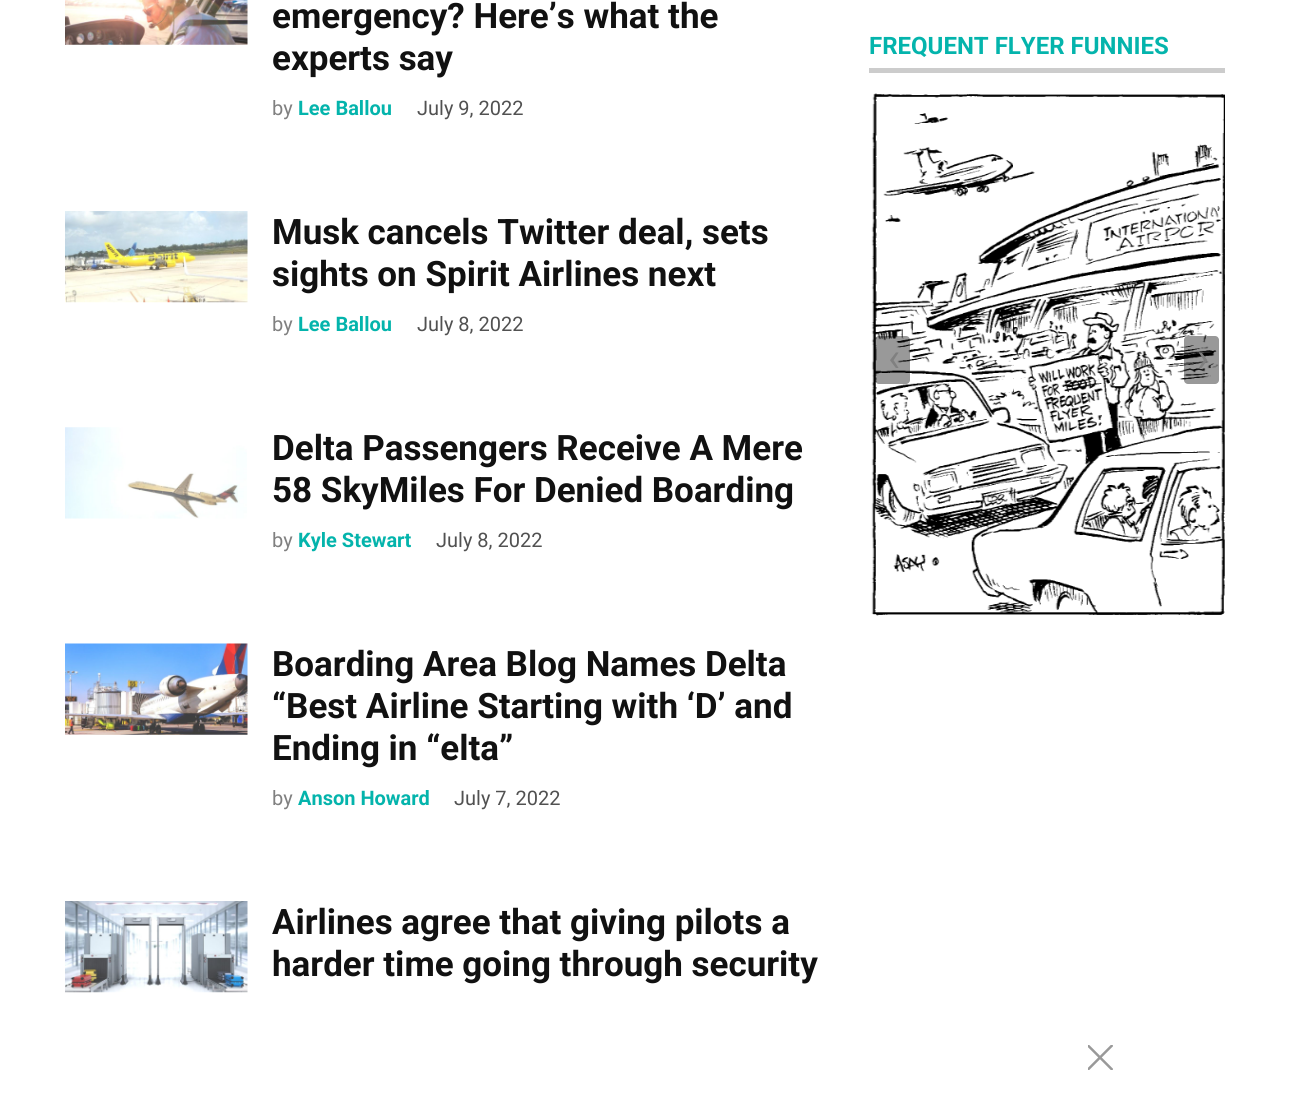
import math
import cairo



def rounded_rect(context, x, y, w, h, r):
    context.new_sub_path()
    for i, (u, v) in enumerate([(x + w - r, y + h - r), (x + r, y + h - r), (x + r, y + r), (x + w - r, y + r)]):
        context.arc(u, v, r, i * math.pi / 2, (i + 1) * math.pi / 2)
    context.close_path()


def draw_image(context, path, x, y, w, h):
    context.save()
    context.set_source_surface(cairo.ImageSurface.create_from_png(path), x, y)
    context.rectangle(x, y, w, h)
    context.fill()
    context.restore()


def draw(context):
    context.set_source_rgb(1, 1, 1)
    context.paint()
    draw_image(context, "images/1.png", 65, 0, 183, 45)
    draw_image(context, "images/2.png", 65, 211, 183, 92)
    draw_image(context, "images/3.png", 65, 427, 182, 92)
    draw_image(context, "images/4.png", 65, 643, 183, 92)
    draw_image(context, "images/5.png", 65, 901, 183, 92)
    context.set_source_rgb(204 / 255, 204 / 255, 204 / 255)
    context.rectangle(869, 68, 356, 5)
    context.fill()
    draw_image(context, "images/6.png", 871, 93, 354, 523)
    context.set_source_rgba(0, 0, 0, 0.4)
    rounded_rect(context, 875, 336, 35, 48, 4)
    context.fill()
    rounded_rect(context, 1184, 336, 35, 48, 4)
    context.fill()
    context.save()
    context.rectangle(1088, 1045, 25, 25)
    context.clip()
    context.new_path()
    context.move_to(1087.5, 1070)
    context.line_to(1112.5, 1045)
    context.move_to(1087.5, 1045)
    context.line_to(1112.5, 1070)
    context.set_source_rgb(153 / 255, 153 / 255, 153 / 255)
    context.set_line_width(2.5)
    context.stroke()
    context.restore()
    context.select_font_face("Roboto", cairo.FontSlant.NORMAL, cairo.FontWeight.BOLD)
    context.set_font_size(35)
    context.set_source_rgb(17 / 255, 17 / 255, 17 / 255)
    context.move_to(272, 28)
    context.show_text("emergency? Here’s what the")
    context.move_to(272, 70)
    context.show_text("experts say")
    context.select_font_face("Roboto")
    context.set_font_size(20)
    context.set_source_rgb(128 / 255, 128 / 255, 128 / 255)
    context.move_to(272, 115)
    context.show_text("by")
    context.select_font_face("Roboto", cairo.FontSlant.NORMAL, cairo.FontWeight.BOLD)
    context.set_source_rgb(4 / 255, 180 / 255, 172 / 255)
    context.move_to(298, 115)
    context.show_text("Lee Ballou")
    context.select_font_face("Roboto")
    context.set_source_rgb(81 / 255, 81 / 255, 81 / 255)
    context.move_to(417, 115)
    context.show_text("July 9, 2022")
    context.select_font_face("Roboto", cairo.FontSlant.NORMAL, cairo.FontWeight.BOLD)
    context.set_font_size(35)
    context.set_source_rgb(17 / 255, 17 / 255, 17 / 255)
    context.move_to(272, 244)
    context.show_text("Musk cancels Twitter deal, sets")
    context.move_to(272, 286)
    context.show_text("sights on Spirit Airlines next")
    context.select_font_face("Roboto")
    context.set_font_size(20)
    context.set_source_rgb(128 / 255, 128 / 255, 128 / 255)
    context.move_to(272, 331)
    context.show_text("by")
    context.select_font_face("Roboto", cairo.FontSlant.NORMAL, cairo.FontWeight.BOLD)
    context.set_source_rgb(4 / 255, 180 / 255, 172 / 255)
    context.move_to(298, 331)
    context.show_text("Lee Ballou")
    context.select_font_face("Roboto")
    context.set_source_rgb(81 / 255, 81 / 255, 81 / 255)
    context.move_to(417, 331)
    context.show_text("July 8, 2022")
    context.select_font_face("Roboto", cairo.FontSlant.NORMAL, cairo.FontWeight.BOLD)
    context.set_font_size(35)
    context.set_source_rgb(17 / 255, 17 / 255, 17 / 255)
    context.move_to(272, 460)
    context.show_text("Delta Passengers Receive A Mere")
    context.move_to(272, 502)
    context.show_text("58 SkyMiles For Denied Boarding")
    context.select_font_face("Roboto")
    context.set_font_size(20)
    context.set_source_rgb(128 / 255, 128 / 255, 128 / 255)
    context.move_to(272, 547)
    context.show_text("by")
    context.select_font_face("Roboto", cairo.FontSlant.NORMAL, cairo.FontWeight.BOLD)
    context.set_source_rgb(4 / 255, 180 / 255, 172 / 255)
    context.move_to(298, 547)
    context.show_text("Kyle Stewart")
    context.select_font_face("Roboto")
    context.set_source_rgb(81 / 255, 81 / 255, 81 / 255)
    context.move_to(436, 547)
    context.show_text("July 8, 2022")
    context.select_font_face("Roboto", cairo.FontSlant.NORMAL, cairo.FontWeight.BOLD)
    context.set_font_size(35)
    context.set_source_rgb(17 / 255, 17 / 255, 17 / 255)
    context.move_to(272, 676)
    context.show_text("Boarding Area Blog Names Delta")
    context.move_to(272, 718)
    context.show_text("“Best Airline Starting with ‘D’ and")
    context.move_to(272, 760)
    context.show_text("Ending in “elta”")
    context.select_font_face("Roboto")
    context.set_font_size(20)
    context.set_source_rgb(128 / 255, 128 / 255, 128 / 255)
    context.move_to(272, 805)
    context.show_text("by")
    context.select_font_face("Roboto", cairo.FontSlant.NORMAL, cairo.FontWeight.BOLD)
    context.set_source_rgb(4 / 255, 180 / 255, 172 / 255)
    context.move_to(298, 805)
    context.show_text("Anson Howard")
    context.select_font_face("Roboto")
    context.set_source_rgb(81 / 255, 81 / 255, 81 / 255)
    context.move_to(454, 805)
    context.show_text("July 7, 2022")
    context.select_font_face("Roboto", cairo.FontSlant.NORMAL, cairo.FontWeight.BOLD)
    context.set_font_size(35)
    context.set_source_rgb(17 / 255, 17 / 255, 17 / 255)
    context.move_to(272, 934)
    context.show_text("Airlines agree that giving pilots a")
    context.move_to(272, 976)
    context.show_text("harder time going through security")
    context.set_font_size(24)
    context.set_source_rgb(4 / 255, 180 / 255, 172 / 255)
    context.move_to(869, 54)
    context.show_text("FREQUENT FLYER FUNNIES")
    context.select_font_face("Roboto")
    context.set_font_size(40)
    context.set_source_rgb(128 / 255, 128 / 255, 128 / 255)
    context.move_to(888, 371)
    context.show_text("‹")
    context.move_to(1197, 371)
    context.show_text("›")


surface = cairo.ImageSurface(cairo.Format.RGB24, 1289, 1114)
context = cairo.Context(surface)
options = cairo.FontOptions()
options.set_hint_metrics(cairo.HintMetrics.OFF)
options.set_hint_style(cairo.HintStyle.NONE)
context.set_font_options(options)
context.set_miter_limit(4)
draw(context)
surface.write_to_png("out.png")
